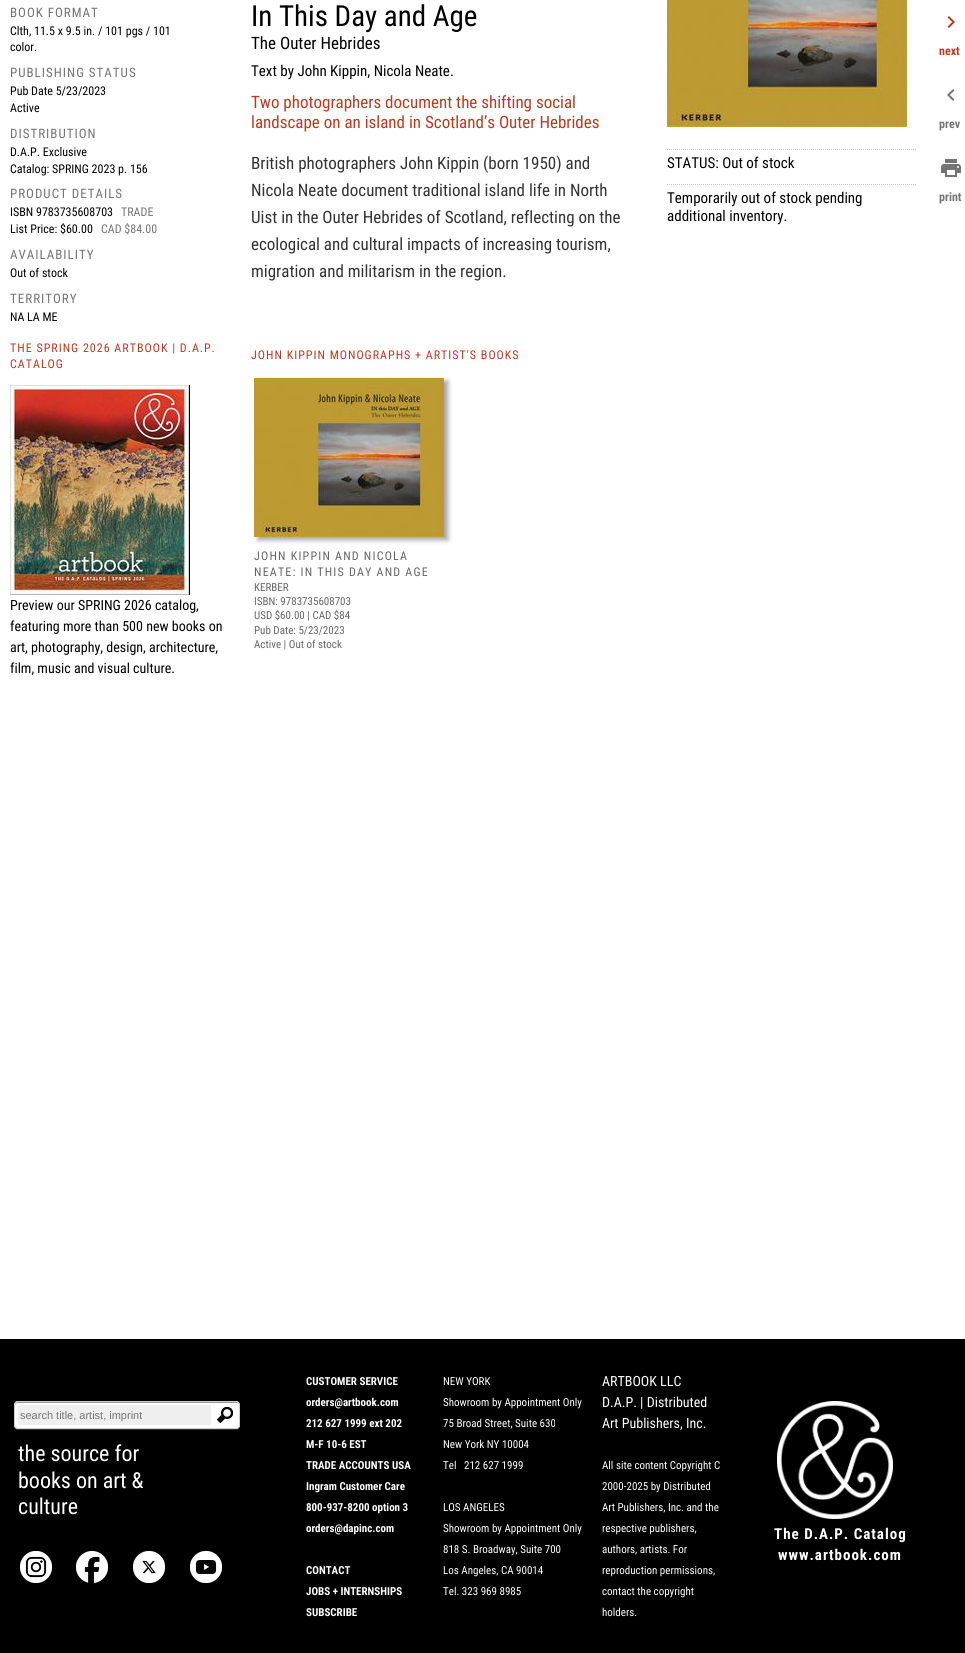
import math
import cairo



def draw_spaced(context, x, y, s, letter, word):
    context.move_to(x, y)
    for ch in s:
        context.show_text(ch)
        context.rel_move_to(letter + word * (ch == ' '), 0)


def rounded_rect(context, x, y, w, h, r):
    context.new_sub_path()
    for i, (u, v) in enumerate([(x + w - r, y + h - r), (x + r, y + h - r), (x + r, y + r), (x + w - r, y + r)]):
        context.arc(u, v, r, i * math.pi / 2, (i + 1) * math.pi / 2)
    context.close_path()


def draw_shadow(context, x, y, w, h, r, blur, alpha):
    context.push_group_with_content(cairo.Content.ALPHA)
    context.set_operator(cairo.Operator.SOURCE)
    for i in range(15, -16, -2):
        e = blur * i / 6
        if min(w, h) + 2 * e > 0:
            context.set_source_rgba(0, 0, 0, alpha * math.erfc((i - 1) / 8.5) / 2)
            rounded_rect(context, x - e, y - e, w + 2 * e, h + 2 * e, max(0, min(r + e + blur * .6, min(w, h) / 2 + e)))
            context.fill()
    context.mask(context.pop_group())


def draw_image(context, path, x, y, w, h):
    context.save()
    context.set_source_surface(cairo.ImageSurface.create_from_png(path), x, y)
    context.rectangle(x, y, w, h)
    context.fill()
    context.restore()


def draw(context):
    context.set_source_rgb(1, 1, 1)
    context.paint()
    draw_image(context, "images/1.png", 10, 385, 180, 210)
    draw_image(context, "images/2.png", 667, 0, 240, 127)
    context.new_path()
    context.move_to(667, 149.5)
    context.line_to(917, 149.5)
    context.set_source_rgb(204 / 255, 204 / 255, 204 / 255)
    context.set_line_width(1)
    context.set_dash([1, 1])
    context.stroke()
    context.new_path()
    context.move_to(667, 184.5)
    context.line_to(917, 184.5)
    context.stroke()
    context.set_source_rgb(163 / 255, 163 / 255, 163 / 255)
    draw_shadow(context, 258, 381, 190, 159, 0, 2.5, 1)
    draw_image(context, "images/3.png", 254, 378, 190, 159)
    draw_image(context, "images/4.png", 947, 16, 8, 12)
    draw_image(context, "images/5.png", 947, 89, 8, 12)
    draw_image(context, "images/6.png", 941, 159, 20, 18)
    context.set_source_rgb(0, 0, 0)
    context.rectangle(0, 1339, 965, 314)
    context.fill()
    context.set_source_rgb(51 / 255, 51 / 255, 51 / 255)
    context.new_path()
    context.move_to(14, 1425)
    context.curve_to(14, 1428, 15, 1430, 18, 1430)
    context.line_to(236, 1430)
    context.curve_to(239, 1430, 240, 1428, 240, 1425)
    context.curve_to(240, 1427, 238, 1429, 236, 1429)
    context.line_to(18, 1429)
    context.curve_to(16, 1429, 14, 1427, 14, 1425)
    context.close_path()
    context.fill()
    context.set_source_rgb(1, 1, 1)
    rounded_rect(context, 14, 1401, 226, 28, 4)
    context.fill()
    context.set_source_rgb(153 / 255, 153 / 255, 153 / 255)
    context.new_path()
    context.move_to(18, 1403)
    context.line_to(236, 1403)
    context.curve_to(238, 1403, 239, 1404, 239, 1406)
    context.line_to(239, 1405)
    context.curve_to(239, 1403, 238, 1402, 236, 1402)
    context.line_to(18, 1402)
    context.curve_to(16, 1402, 15, 1403, 15, 1405)
    context.line_to(15, 1406)
    context.curve_to(15, 1404, 16, 1403, 18, 1403)
    context.close_path()
    context.fill()
    rounded_rect(context, 14.5, 1401.5, 225, 27, 3.5)
    context.set_source_rgb(204 / 255, 204 / 255, 204 / 255)
    context.set_dash([])
    context.stroke()
    context.set_source_rgb(239 / 255, 239 / 255, 239 / 255)
    context.new_path()
    context.move_to(21, 1405)
    context.line_to(211, 1405)
    context.line_to(211, 1425)
    context.line_to(21, 1425)
    context.curve_to(19.5, 1425, 18, 1423.5, 18, 1422)
    context.line_to(18, 1408)
    context.curve_to(18, 1406.5, 19.5, 1405, 21, 1405)
    context.close_path()
    context.fill()
    draw_image(context, "images/7.png", 217, 1407, 16, 16)
    draw_image(context, "images/8.png", 20, 1551, 32, 32)
    draw_image(context, "images/9.png", 76, 1551, 32, 32)
    draw_image(context, "images/10.png", 133, 1551, 32, 32)
    draw_image(context, "images/11.png", 190, 1551, 32, 32)
    draw_image(context, "images/12.png", 777, 1401, 116, 118)
    context.select_font_face("Roboto Condensed")
    context.set_font_size(13)
    context.set_source_rgb(116 / 255, 116 / 255, 116 / 255)
    draw_spaced(context, 10, 17, "BOOK FORMAT", 1, 0)
    context.set_font_size(12)
    context.set_source_rgb(0, 0, 0)
    context.move_to(10, 35)
    context.show_text("Clth, 11.5 x 9.5 in. / 101 pgs / 101")
    context.move_to(10, 51)
    context.show_text("color.")
    context.set_font_size(13)
    context.set_source_rgb(116 / 255, 116 / 255, 116 / 255)
    draw_spaced(context, 10, 77, "PUBLISHING STATUS", 1, 0)
    context.set_font_size(12)
    context.set_source_rgb(0, 0, 0)
    context.move_to(10, 95)
    context.show_text("Pub Date 5/23/2023")
    context.move_to(10, 112)
    context.show_text("Active")
    context.set_font_size(13)
    context.set_source_rgb(116 / 255, 116 / 255, 116 / 255)
    draw_spaced(context, 10, 138, "DISTRIBUTION", 1, 0)
    context.set_font_size(12)
    context.set_source_rgb(0, 0, 0)
    context.move_to(10, 156)
    context.show_text("D.A.P. Exclusive")
    context.move_to(10, 173)
    context.show_text("Catalog: SPRING 2023 p. 156")
    context.set_font_size(13)
    context.set_source_rgb(116 / 255, 116 / 255, 116 / 255)
    draw_spaced(context, 10, 198, "PRODUCT DETAILS", 1, 0)
    context.set_font_size(12)
    context.set_source_rgb(0, 0, 0)
    context.move_to(10, 216)
    context.show_text("ISBN 9783735608703")
    context.set_source_rgb(116 / 255, 116 / 255, 116 / 255)
    context.move_to(121, 216)
    context.show_text("TRADE")
    context.set_source_rgb(0, 0, 0)
    context.move_to(10, 233)
    context.show_text("List Price: $60.00")
    context.set_source_rgb(116 / 255, 116 / 255, 116 / 255)
    context.move_to(101, 233)
    context.show_text("CAD $84.00")
    context.set_font_size(13)
    draw_spaced(context, 10, 259, "AVAILABILITY", 1, 0)
    context.set_font_size(12)
    context.set_source_rgb(0, 0, 0)
    context.move_to(10, 277)
    context.show_text("Out of stock")
    context.set_font_size(13)
    context.set_source_rgb(116 / 255, 116 / 255, 116 / 255)
    draw_spaced(context, 10, 303, "TERRITORY", 1, 0)
    context.set_font_size(12)
    context.set_source_rgb(0, 0, 0)
    context.move_to(10, 321)
    context.show_text("NA LA ME")
    context.set_source_rgb(186 / 255, 57 / 255, 34 / 255)
    draw_spaced(context, 10, 352, "THE SPRING 2026 ARTBOOK | D.A.P.", 1, 0)
    draw_spaced(context, 10, 368, "CATALOG", 1, 0)
    context.set_font_size(14)
    context.set_source_rgb(0, 0, 0)
    context.move_to(10, 610)
    context.show_text("Preview our SPRING 2026 catalog,")
    context.move_to(10, 631)
    context.show_text("featuring more than 500 new books on")
    context.move_to(10, 652)
    context.show_text("art, photography, design, architecture,")
    context.move_to(10, 673)
    context.show_text("film, music and visual culture.")
    context.set_font_size(29)
    context.move_to(251, 26)
    context.show_text("In This Day and Age")
    context.set_font_size(17)
    context.move_to(251, 49)
    context.show_text("The Outer Hebrides")
    context.set_font_size(15)
    context.move_to(251, 76)
    context.show_text("Text by John Kippin, Nicola Neate.")
    context.set_font_size(17)
    context.set_source_rgb(186 / 255, 57 / 255, 34 / 255)
    context.move_to(251, 108)
    context.show_text("Two photographers document the shifting social")
    context.move_to(251, 128)
    context.show_text("landscape on an island in Scotland’s Outer Hebrides")
    context.set_source_rgb(51 / 255, 51 / 255, 51 / 255)
    context.move_to(251, 169)
    context.show_text("British photographers John Kippin (born 1950) and")
    context.move_to(251, 196)
    context.show_text("Nicola Neate document traditional island life in North")
    context.move_to(251, 223)
    context.show_text("Uist in the Outer Hebrides of Scotland, reflecting on the")
    context.move_to(251, 250)
    context.show_text("ecological and cultural impacts of increasing tourism,")
    context.move_to(251, 277)
    context.show_text("migration and militarism in the region.")
    context.set_font_size(15)
    context.set_source_rgb(0, 0, 0)
    context.move_to(667, 168)
    context.show_text("STATUS: Out of stock")
    context.move_to(667, 203)
    context.show_text("Temporarily out of stock pending")
    context.move_to(667, 221)
    context.show_text("additional inventory.")
    context.set_font_size(12)
    context.set_source_rgb(186 / 255, 57 / 255, 34 / 255)
    draw_spaced(context, 251, 359, "JOHN KIPPIN MONOGRAPHS + ARTIST'S BOOKS", 1, 0)
    context.set_source_rgb(102 / 255, 102 / 255, 102 / 255)
    draw_spaced(context, 254, 560, "JOHN KIPPIN AND NICOLA", 1.2, 0)
    draw_spaced(context, 254, 576, "NEATE: IN THIS DAY AND AGE", 1.2, 0)
    context.set_font_size(11)
    context.move_to(254, 591)
    context.show_text("KERBER")
    context.move_to(254, 605)
    context.show_text("ISBN: 9783735608703")
    context.move_to(254, 619)
    context.show_text("USD $60.00 | CAD $84")
    context.move_to(254, 634)
    context.show_text("Pub Date: 5/23/2023")
    context.move_to(254, 648)
    context.show_text("Active | Out of stock")
    context.select_font_face("Roboto Condensed", cairo.FontSlant.NORMAL, cairo.FontWeight.BOLD)
    context.set_font_size(12)
    context.set_source_rgb(186 / 255, 57 / 255, 34 / 255)
    context.move_to(939, 55)
    context.show_text("next")
    context.set_source_rgb(116 / 255, 116 / 255, 116 / 255)
    context.move_to(939, 128)
    context.show_text("prev")
    context.move_to(939, 201)
    context.show_text("print")
    context.select_font_face("Liberation Sans")
    context.set_font_size(11)
    context.move_to(20, 1419)
    context.show_text("search title, artist, imprint")
    context.select_font_face("Roboto Condensed")
    context.set_font_size(22)
    context.set_source_rgb(1, 1, 1)
    context.move_to(18, 1461)
    context.show_text("the source for")
    context.move_to(18, 1488)
    context.show_text("books on art &")
    context.move_to(18, 1514)
    context.show_text("culture")
    context.select_font_face("Roboto Condensed", cairo.FontSlant.NORMAL, cairo.FontWeight.BOLD)
    context.set_font_size(11)
    context.move_to(306, 1385)
    context.show_text("CUSTOMER SERVICE")
    context.move_to(306, 1406)
    context.show_text("orders@artbook.com")
    context.move_to(306, 1427)
    context.show_text("212 627 1999 ext 202")
    context.move_to(306, 1448)
    context.show_text("M-F 10-6 EST")
    context.move_to(306, 1469)
    context.show_text("TRADE ACCOUNTS USA")
    context.move_to(306, 1490)
    context.show_text("Ingram Customer Care")
    context.move_to(306, 1511)
    context.show_text("800-937-8200 option 3")
    context.move_to(306, 1532)
    context.show_text("orders@dapinc.com")
    context.move_to(306, 1574)
    context.show_text("CONTACT")
    context.move_to(306, 1595)
    context.show_text("JOBS + INTERNSHIPS")
    context.move_to(306, 1616)
    context.show_text("SUBSCRIBE")
    context.select_font_face("Roboto Condensed")
    context.move_to(443, 1385)
    context.show_text("NEW YORK")
    context.move_to(443, 1406)
    context.show_text("Showroom by Appointment Only")
    context.move_to(443, 1427)
    context.show_text("75 Broad Street, Suite 630")
    context.move_to(443, 1448)
    context.show_text("New York NY 10004")
    context.move_to(443, 1469)
    context.show_text("Tel   212 627 1999")
    context.move_to(443, 1511)
    context.show_text("LOS ANGELES")
    context.move_to(443, 1532)
    context.show_text("Showroom by Appointment Only")
    context.move_to(443, 1553)
    context.show_text("818 S. Broadway, Suite 700")
    context.move_to(443, 1574)
    context.show_text("Los Angeles, CA 90014")
    context.move_to(443, 1595)
    context.show_text("Tel. 323 969 8985")
    context.set_font_size(14)
    context.move_to(602, 1386)
    context.show_text("ARTBOOK LLC")
    context.move_to(602, 1407)
    context.show_text("D.A.P. | Distributed")
    context.move_to(602, 1428)
    context.show_text("Art Publishers, Inc.")
    context.set_font_size(11)
    context.move_to(602, 1469)
    context.show_text("All site content Copyright C")
    context.move_to(602, 1490)
    context.show_text("2000-2025 by Distributed")
    context.move_to(602, 1511)
    context.show_text("Art Publishers, Inc. and the")
    context.move_to(602, 1532)
    context.show_text("respective publishers,")
    context.move_to(602, 1553)
    context.show_text("authors, artists. For")
    context.move_to(602, 1574)
    context.show_text("reproduction permissions,")
    context.move_to(602, 1595)
    context.show_text("contact the copyright")
    context.move_to(602, 1616)
    context.show_text("holders.")
    context.select_font_face("Roboto Condensed", cairo.FontSlant.NORMAL, cairo.FontWeight.BOLD)
    context.set_font_size(15)
    draw_spaced(context, 774, 1539, "The D.A.P. Catalog", 1, 0)
    draw_spaced(context, 778, 1560, "www.artbook.com", 1, 0)


surface = cairo.ImageSurface(cairo.Format.RGB24, 965, 1653)
context = cairo.Context(surface)
options = cairo.FontOptions()
options.set_hint_metrics(cairo.HintMetrics.OFF)
options.set_hint_style(cairo.HintStyle.NONE)
context.set_font_options(options)
context.set_miter_limit(4)
draw(context)
surface.write_to_png("out.png")
